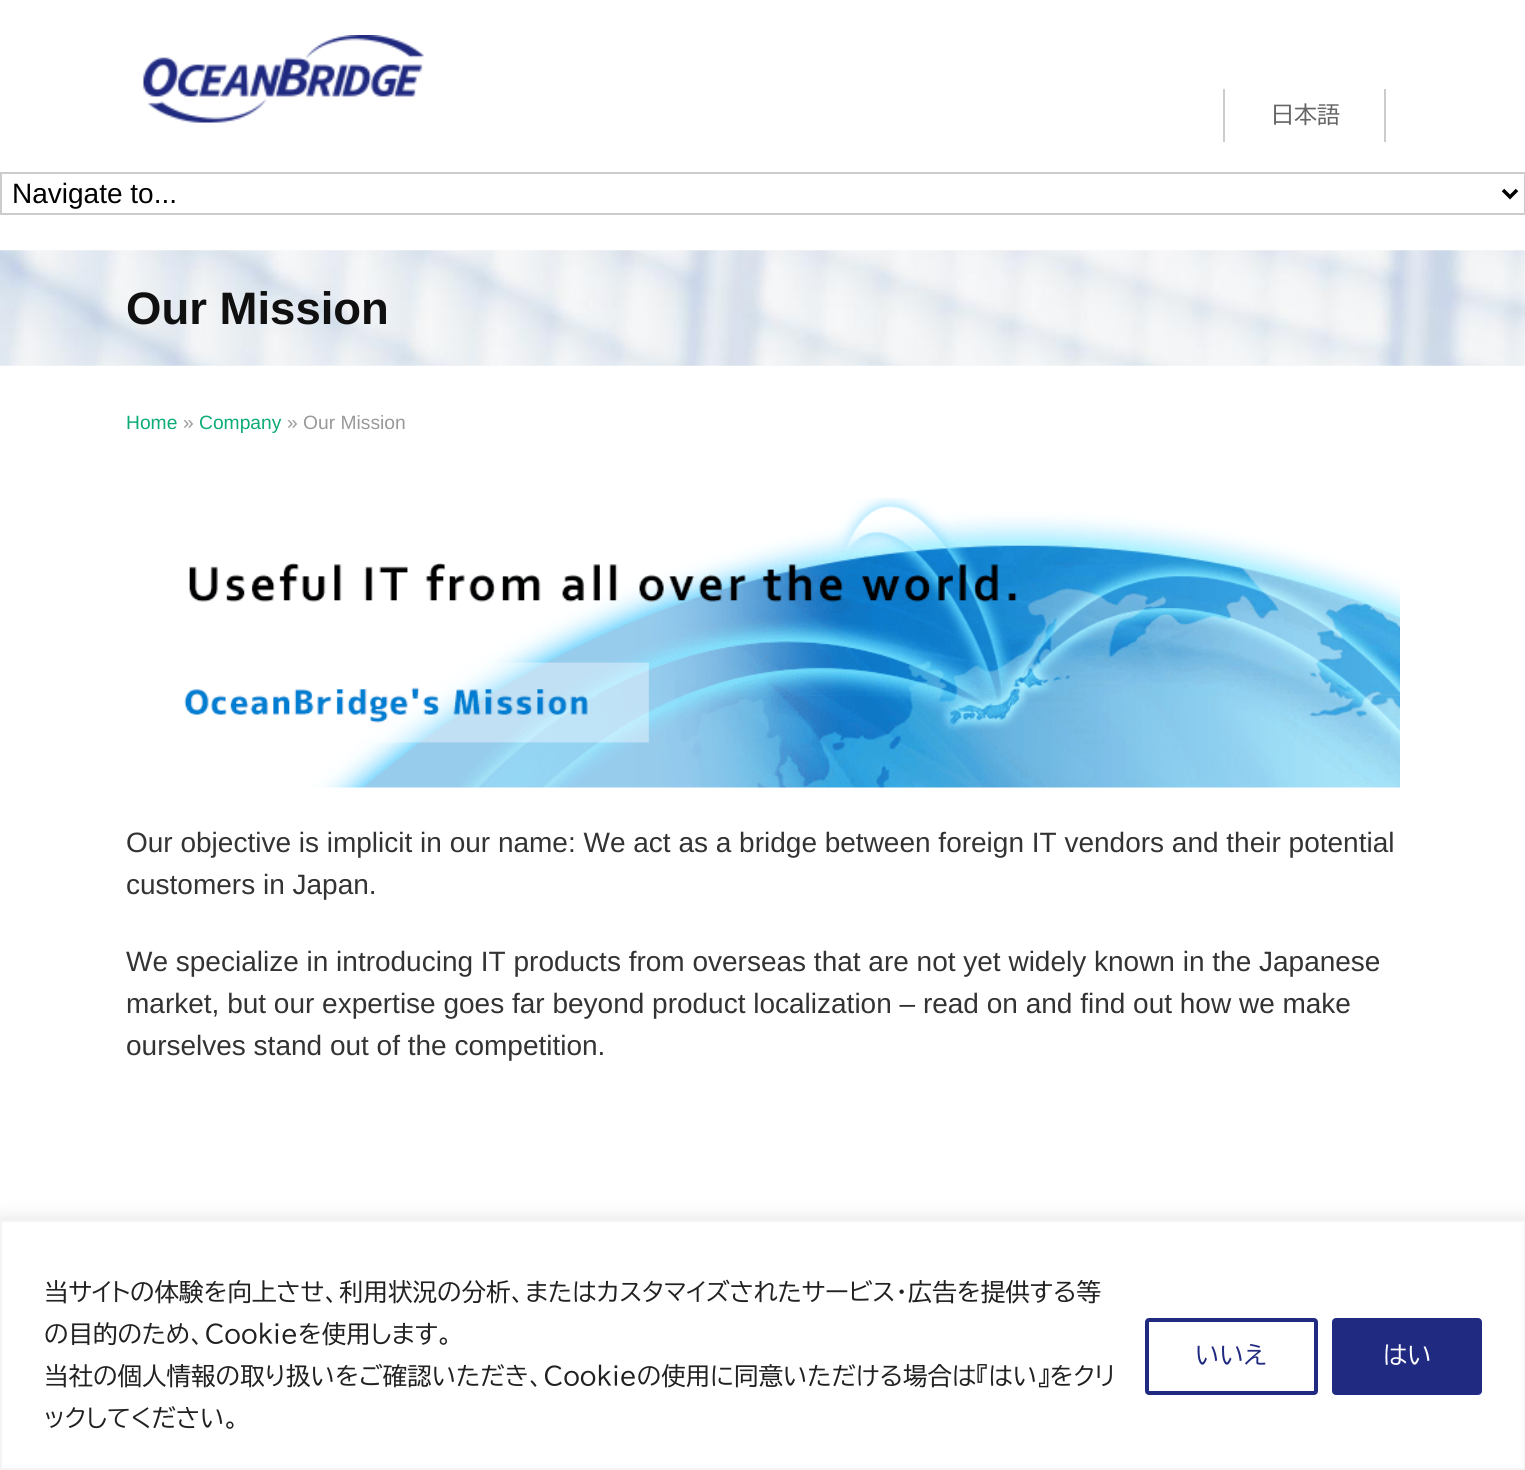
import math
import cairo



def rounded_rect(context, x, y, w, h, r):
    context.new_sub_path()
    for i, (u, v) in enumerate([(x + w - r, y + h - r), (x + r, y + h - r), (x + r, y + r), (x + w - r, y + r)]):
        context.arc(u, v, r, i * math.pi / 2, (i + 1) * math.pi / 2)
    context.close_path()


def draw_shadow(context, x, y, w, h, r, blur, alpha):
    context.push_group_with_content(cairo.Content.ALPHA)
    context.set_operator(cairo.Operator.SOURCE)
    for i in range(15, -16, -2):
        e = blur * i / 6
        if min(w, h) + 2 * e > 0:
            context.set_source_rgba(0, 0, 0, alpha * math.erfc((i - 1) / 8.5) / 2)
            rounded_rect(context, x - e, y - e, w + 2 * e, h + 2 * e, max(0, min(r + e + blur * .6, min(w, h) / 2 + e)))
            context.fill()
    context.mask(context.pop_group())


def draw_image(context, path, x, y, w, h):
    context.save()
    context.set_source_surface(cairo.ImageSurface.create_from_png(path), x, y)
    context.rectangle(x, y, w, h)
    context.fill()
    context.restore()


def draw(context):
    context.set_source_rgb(1, 1, 1)
    context.paint()
    draw_image(context, "images/1.png", 143, 35, 281, 88)
    context.set_source_rgb(204 / 255, 204 / 255, 204 / 255)
    context.rectangle(1384, 89, 2, 53)
    context.fill()
    context.rectangle(1223, 89, 2, 53)
    context.fill()
    context.rectangle(1, 173, 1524, 41)
    context.stroke()
    context.new_path()
    context.move_to(1503, 190)
    context.line_to(1510, 197)
    context.line_to(1517, 190)
    context.set_source_rgb(0, 0, 0)
    context.set_line_width(3.5)
    context.stroke()
    draw_image(context, "images/2.png", 0, 250, 1525, 116)
    draw_image(context, "images/3.png", 184, 498, 1216, 290)
    context.set_source_rgb(172 / 255, 171 / 255, 171 / 255)
    draw_shadow(context, 0, 1218, 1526, 250, 0, 9, 0.3)
    context.set_source_rgb(1, 1, 1)
    context.rectangle(1, 1221, 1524, 248)
    context.fill_preserve()
    context.set_source_rgb(244 / 255, 244 / 255, 244 / 255)
    context.set_line_width(2)
    context.stroke()
    rounded_rect(context, 1147, 1320, 169, 73, 2)
    context.set_source_rgb(32 / 255, 42 / 255, 128 / 255)
    context.set_line_width(4)
    context.stroke()
    rounded_rect(context, 1334, 1320, 146, 73, 2)
    context.fill_preserve()
    context.stroke()
    context.select_font_face("BIZ UDPGothic")
    context.set_font_size(23)
    context.set_source_rgb(102 / 255, 102 / 255, 102 / 255)
    context.move_to(1271, 123)
    context.show_text("日本語")
    context.select_font_face("Liberation Sans")
    context.set_font_size(28)
    context.set_source_rgb(0, 0, 0)
    context.move_to(12, 203)
    context.show_text("Navigate to...")
    context.select_font_face("Liberation Sans", cairo.FontSlant.NORMAL, cairo.FontWeight.BOLD)
    context.set_font_size(45.5)
    context.set_source_rgb(16 / 255, 16 / 255, 16 / 255)
    context.move_to(126, 324)
    context.show_text("Our Mission")
    context.select_font_face("Liberation Sans")
    context.set_font_size(19.25)
    context.set_source_rgb(13 / 255, 171 / 255, 120 / 255)
    context.move_to(126, 429)
    context.show_text("Home")
    context.set_source_rgb(153 / 255, 153 / 255, 153 / 255)
    context.move_to(183, 429)
    context.show_text("»")
    context.set_source_rgb(13 / 255, 171 / 255, 120 / 255)
    context.move_to(199, 429)
    context.show_text("Company")
    context.set_source_rgb(153 / 255, 153 / 255, 153 / 255)
    context.move_to(287, 429)
    context.show_text("» Our Mission")
    context.set_font_size(28)
    context.set_source_rgb(51 / 255, 51 / 255, 51 / 255)
    context.move_to(126, 852)
    context.show_text("Our objective is implicit in our name: We act as a bridge between foreign IT vendors and their potential")
    context.move_to(126, 894)
    context.show_text("customers in Japan.")
    context.move_to(126, 971)
    context.show_text("We specialize in introducing IT products from overseas that are not yet widely known in the Japanese")
    context.move_to(126, 1013)
    context.show_text("market, but our expertise goes far beyond product localization – read on and find out how we make")
    context.move_to(126, 1055)
    context.show_text("ourselves stand out of the competition.")
    context.select_font_face("BIZ UDPGothic")
    context.set_font_size(24.5)
    context.set_source_rgb(33 / 255, 33 / 255, 33 / 255)
    context.move_to(44, 1301)
    context.show_text("当サイトの体験を向上させ、利用状況の分析、またはカスタマイズされたサービス・広告を提供する等")
    context.move_to(44, 1343)
    context.show_text("の目的のため、Cookieを使用します。")
    context.move_to(44, 1385)
    context.show_text("当社の個人情報の取り扱いをご確認いただき、Cookieの使用に同意いただける場合は『はい』をクリ")
    context.move_to(44, 1427)
    context.show_text("ックしてください。")
    context.set_source_rgb(32 / 255, 42 / 255, 128 / 255)
    context.move_to(1195, 1364)
    context.show_text("いいえ")
    context.set_source_rgb(1, 1, 1)
    context.move_to(1383, 1364)
    context.show_text("はい")


surface = cairo.ImageSurface(cairo.Format.RGB24, 1525, 1470)
context = cairo.Context(surface)
options = cairo.FontOptions()
options.set_hint_metrics(cairo.HintMetrics.OFF)
options.set_hint_style(cairo.HintStyle.NONE)
context.set_font_options(options)
context.set_miter_limit(4)
draw(context)
surface.write_to_png("out.png")
